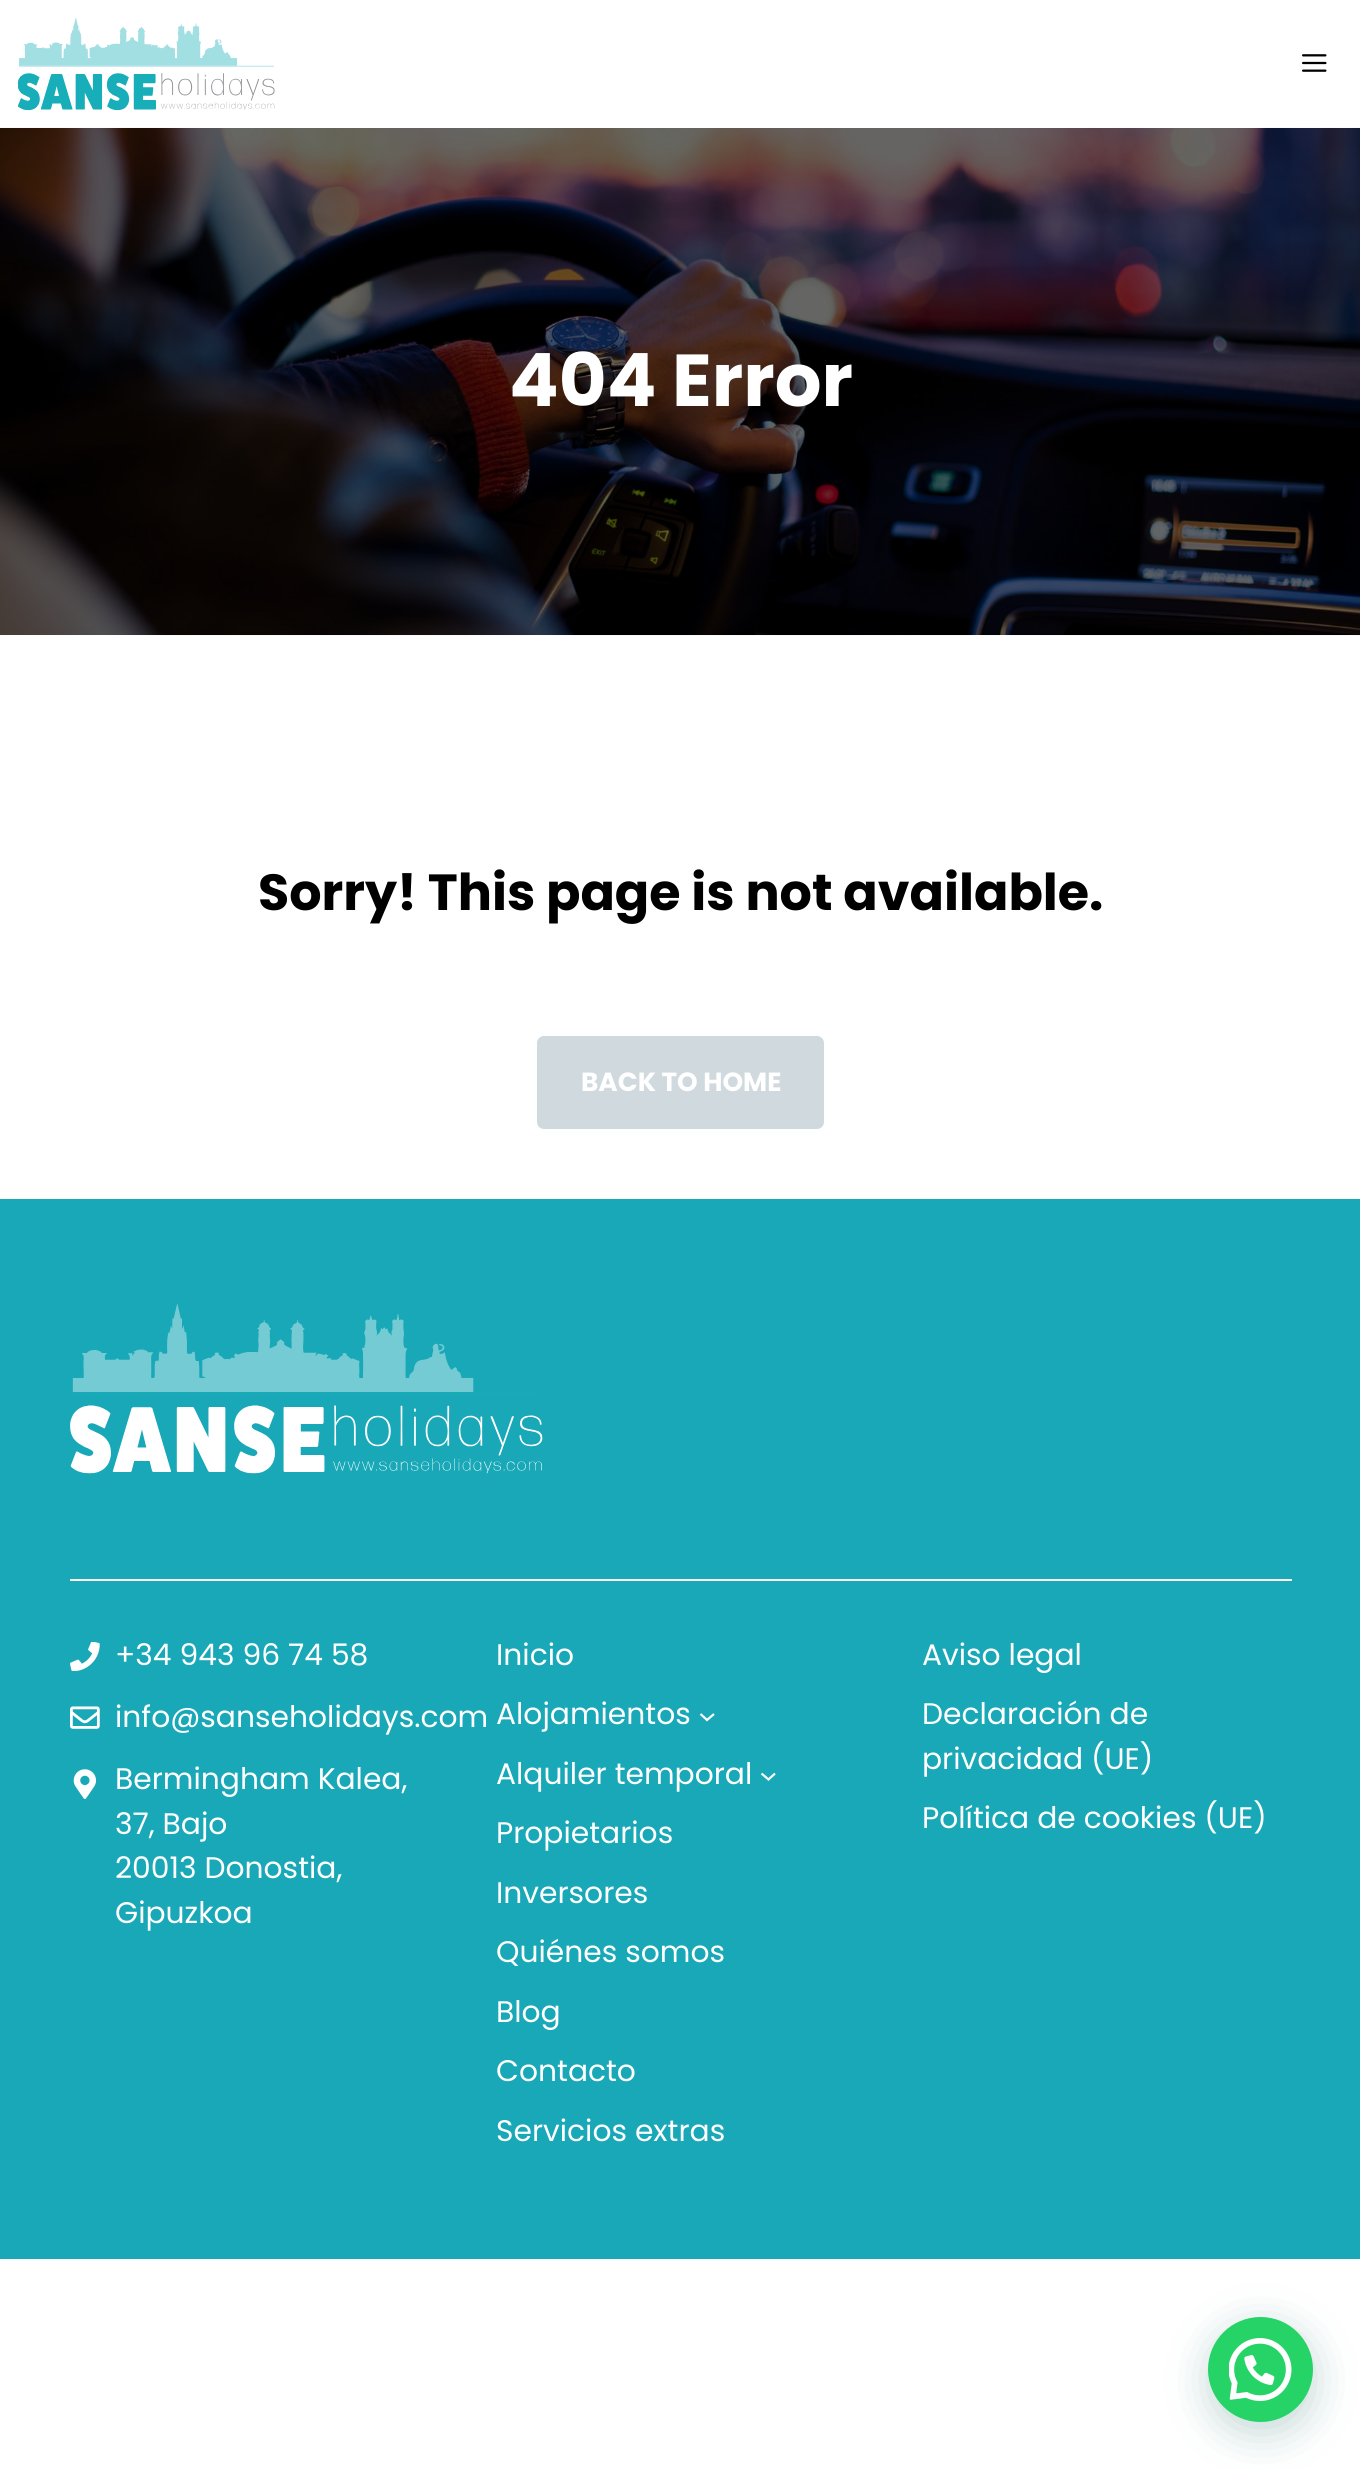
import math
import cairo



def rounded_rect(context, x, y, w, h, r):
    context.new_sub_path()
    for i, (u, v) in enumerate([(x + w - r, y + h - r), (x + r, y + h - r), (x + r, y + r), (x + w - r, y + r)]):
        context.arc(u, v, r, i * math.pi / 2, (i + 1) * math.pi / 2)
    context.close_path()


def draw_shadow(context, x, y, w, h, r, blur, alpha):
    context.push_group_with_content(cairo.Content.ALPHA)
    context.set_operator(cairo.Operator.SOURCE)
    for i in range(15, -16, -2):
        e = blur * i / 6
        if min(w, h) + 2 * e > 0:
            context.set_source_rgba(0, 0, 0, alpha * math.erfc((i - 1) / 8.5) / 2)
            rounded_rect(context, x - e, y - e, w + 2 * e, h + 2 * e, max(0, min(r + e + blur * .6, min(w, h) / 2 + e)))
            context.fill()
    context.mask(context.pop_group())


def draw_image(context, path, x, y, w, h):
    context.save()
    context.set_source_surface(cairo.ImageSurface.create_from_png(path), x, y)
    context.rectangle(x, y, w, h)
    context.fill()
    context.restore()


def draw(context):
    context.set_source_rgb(1, 1, 1)
    context.paint()
    draw_image(context, "images/1.png", 18, 18, 257, 92)
    draw_image(context, "images/2.png", 1302, 54, 25, 18)
    context.set_source_rgb(0, 0, 0)
    context.rectangle(0, 128, 1360, 507)
    context.fill()
    draw_image(context, "images/3.png", 0, 127, 1360, 509)
    context.set_source_rgb(208 / 255, 218 / 255, 222 / 255)
    rounded_rect(context, 537, 1036, 287, 93, 7)
    context.fill()
    context.set_source_rgb(25 / 255, 168 / 255, 183 / 255)
    context.rectangle(0, 1199, 1360, 1060)
    context.fill()
    draw_image(context, "images/4.png", 70, 1304, 473, 170)
    context.set_source_rgb(1, 1, 1)
    context.rectangle(70, 1579, 1222, 2)
    context.fill()
    draw_image(context, "images/5.png", 70, 1642, 30, 29)
    draw_image(context, "images/6.png", 70, 1706, 30, 23)
    draw_image(context, "images/7.png", 73, 1769, 23, 30)
    context.new_path()
    context.move_to(700.5, 1714)
    context.line_to(707, 1720)
    context.line_to(714, 1714)
    context.set_line_width(2.2)
    context.stroke()
    context.new_path()
    context.move_to(761.5, 1773.5)
    context.line_to(768.5, 1779.5)
    context.line_to(775, 1773.5)
    context.stroke()
    context.set_source_rgb(7 / 255, 94 / 255, 84 / 255)
    draw_shadow(context, 1209, 2328, 105, 105, 52.5, 21, 0.24)
    context.set_source_rgb(37 / 255, 211 / 255, 102 / 255)
    context.arc(1260.5, 2369.5, 52.5, 0, 2 * math.pi)
    context.fill()
    draw_image(context, "images/8.png", 1229, 2338, 63, 63)
    context.select_font_face("Poppins", cairo.FontSlant.NORMAL, cairo.FontWeight.BOLD)
    context.set_font_size(73.5)
    context.set_source_rgb(1, 1, 1)
    context.move_to(509, 406)
    context.show_text("404 Error")
    context.set_font_size(50.75)
    context.set_source_rgb(0, 0, 0)
    context.move_to(258, 910)
    context.show_text("Sorry! This page is not available.")
    context.set_font_size(26.25)
    context.set_source_rgb(1, 1, 1)
    context.move_to(581, 1091)
    context.show_text("BACK TO HOME")
    context.select_font_face("Poppins")
    context.set_font_size(29.75)
    context.move_to(115, 1665)
    context.show_text("+34 943 96 74 58")
    context.move_to(115, 1727)
    context.show_text("info@sanseholidays.com")
    context.move_to(115, 1789)
    context.show_text("Bermingham Kalea,")
    context.move_to(115, 1834)
    context.show_text("37, Bajo")
    context.move_to(115, 1878)
    context.show_text("20013 Donostia,")
    context.move_to(115, 1923)
    context.show_text("Gipuzkoa")
    context.move_to(496, 1665)
    context.show_text("Inicio")
    context.move_to(496, 1724)
    context.show_text("Alojamientos")
    context.move_to(496, 1784)
    context.show_text("Alquiler temporal")
    context.move_to(496, 1843)
    context.show_text("Propietarios")
    context.move_to(496, 1903)
    context.show_text("Inversores")
    context.move_to(496, 1962)
    context.show_text("Quiénes somos")
    context.move_to(496, 2022)
    context.show_text("Blog")
    context.move_to(496, 2081)
    context.show_text("Contacto")
    context.move_to(496, 2141)
    context.show_text("Servicios extras")
    context.move_to(922, 1665)
    context.show_text("Aviso legal")
    context.move_to(922, 1724)
    context.show_text("Declaración de")
    context.move_to(922, 1769)
    context.show_text("privacidad (UE)")
    context.move_to(922, 1828)
    context.show_text("Política de cookies (UE)")


surface = cairo.ImageSurface(cairo.Format.RGB24, 1360, 2470)
context = cairo.Context(surface)
options = cairo.FontOptions()
options.set_hint_metrics(cairo.HintMetrics.OFF)
options.set_hint_style(cairo.HintStyle.NONE)
context.set_font_options(options)
context.set_miter_limit(4)
draw(context)
surface.write_to_png("out.png")
